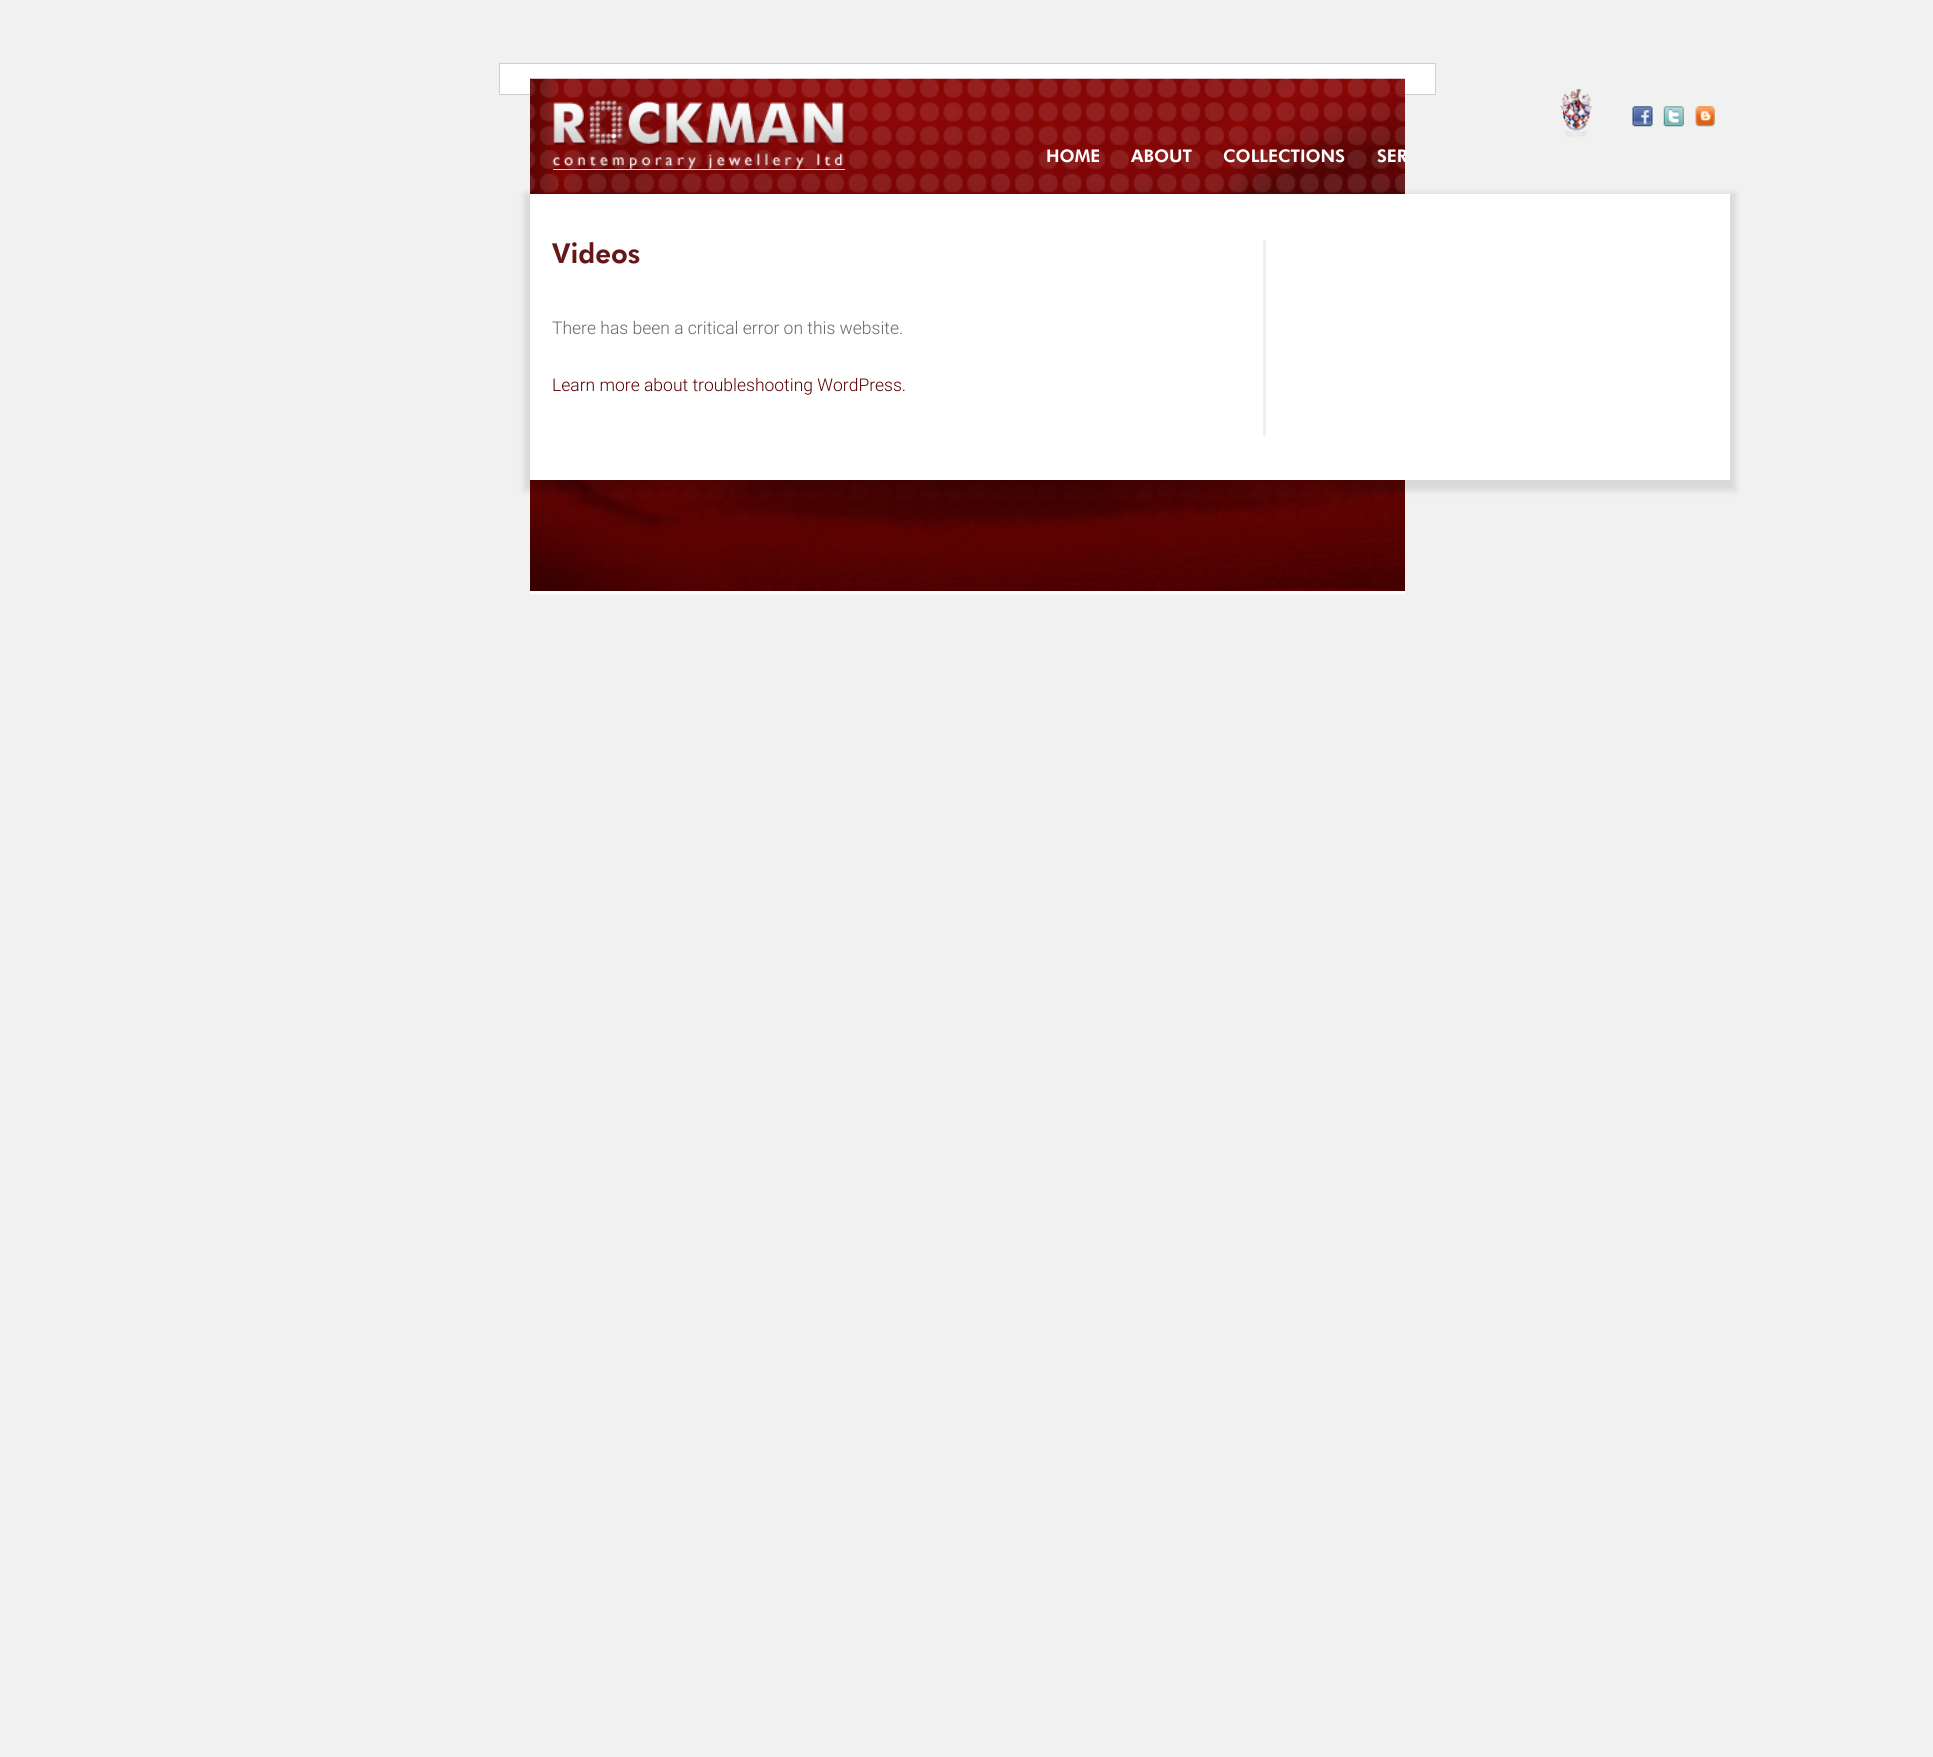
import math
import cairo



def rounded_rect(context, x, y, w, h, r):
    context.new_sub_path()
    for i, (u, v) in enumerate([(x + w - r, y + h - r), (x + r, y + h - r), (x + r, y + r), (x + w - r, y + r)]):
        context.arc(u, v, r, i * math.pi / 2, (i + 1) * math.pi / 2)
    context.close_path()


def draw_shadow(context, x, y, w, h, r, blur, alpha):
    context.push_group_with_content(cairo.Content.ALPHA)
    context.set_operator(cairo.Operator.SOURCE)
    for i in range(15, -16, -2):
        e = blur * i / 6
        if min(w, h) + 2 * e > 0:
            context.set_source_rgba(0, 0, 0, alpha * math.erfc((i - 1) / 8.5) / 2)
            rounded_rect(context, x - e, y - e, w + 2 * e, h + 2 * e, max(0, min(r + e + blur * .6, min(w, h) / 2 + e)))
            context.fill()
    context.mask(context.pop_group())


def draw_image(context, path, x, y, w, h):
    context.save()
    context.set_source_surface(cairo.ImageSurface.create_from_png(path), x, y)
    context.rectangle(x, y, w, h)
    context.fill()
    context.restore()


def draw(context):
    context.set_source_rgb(241 / 255, 241 / 255, 241 / 255)
    context.paint()
    context.set_source_rgb(1, 1, 1)
    context.rectangle(499.5, 63.5, 936, 31)
    context.fill_preserve()
    context.set_source_rgb(204 / 255, 208 / 255, 212 / 255)
    context.set_line_width(1)
    context.stroke()
    draw_image(context, "images/1.png", 530, 78, 875, 513)
    draw_image(context, "images/2.png", 587, 96, 40, 49)
    draw_image(context, "images/3.png", 1560, 88, 32, 49)
    draw_image(context, "images/4.png", 552, 101, 293, 68)
    context.set_source_rgb(218 / 255, 218 / 255, 218 / 255)
    context.rectangle(553, 169, 292, 1)
    context.fill()
    draw_image(context, "images/5.png", 1632, 106, 21, 21)
    draw_image(context, "images/6.png", 1663, 106, 21, 21)
    draw_image(context, "images/7.png", 1695, 106, 20, 21)
    context.set_source_rgb(1, 1, 1)
    context.rectangle(530, 591, 875, 3)
    context.fill()
    context.set_source_rgb(1 / 255, 1 / 255, 1 / 255)
    draw_shadow(context, 524, 193, 1212, 298, 0, 3, 0.1)
    context.set_source_rgb(1, 1, 1)
    context.rectangle(530, 194, 1200, 286)
    context.fill()
    context.set_source_rgb(239 / 255, 239 / 255, 239 / 255)
    context.rectangle(1263, 240, 3, 196)
    context.fill()
    context.select_font_face("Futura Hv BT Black")
    context.set_font_size(17.5)
    context.set_source_rgb(1, 1, 1)
    context.move_to(1046, 162)
    context.show_text("HOME")
    context.move_to(1131, 162)
    context.show_text("ABOUT")
    context.move_to(1223, 162)
    context.show_text("COLLECTIONS")
    context.move_to(1377, 162)
    context.show_text("SER")
    context.set_font_size(27.5)
    context.set_source_rgb(102 / 255, 24 / 255, 24 / 255)
    context.move_to(552, 263)
    context.show_text("Videos")
    context.select_font_face("Roboto Light")
    context.set_font_size(17.5)
    context.set_source_rgb(103 / 255, 103 / 255, 103 / 255)
    context.move_to(552, 334)
    context.show_text("There has been a critical error on this website.")
    context.set_source_rgb(88 / 255, 1 / 255, 0)
    context.move_to(552, 391)
    context.show_text("Learn more about troubleshooting WordPress.")


surface = cairo.ImageSurface(cairo.Format.RGB24, 1933, 1757)
context = cairo.Context(surface)
options = cairo.FontOptions()
options.set_hint_metrics(cairo.HintMetrics.OFF)
options.set_hint_style(cairo.HintStyle.NONE)
context.set_font_options(options)
context.set_miter_limit(4)
draw(context)
surface.write_to_png("out.png")
